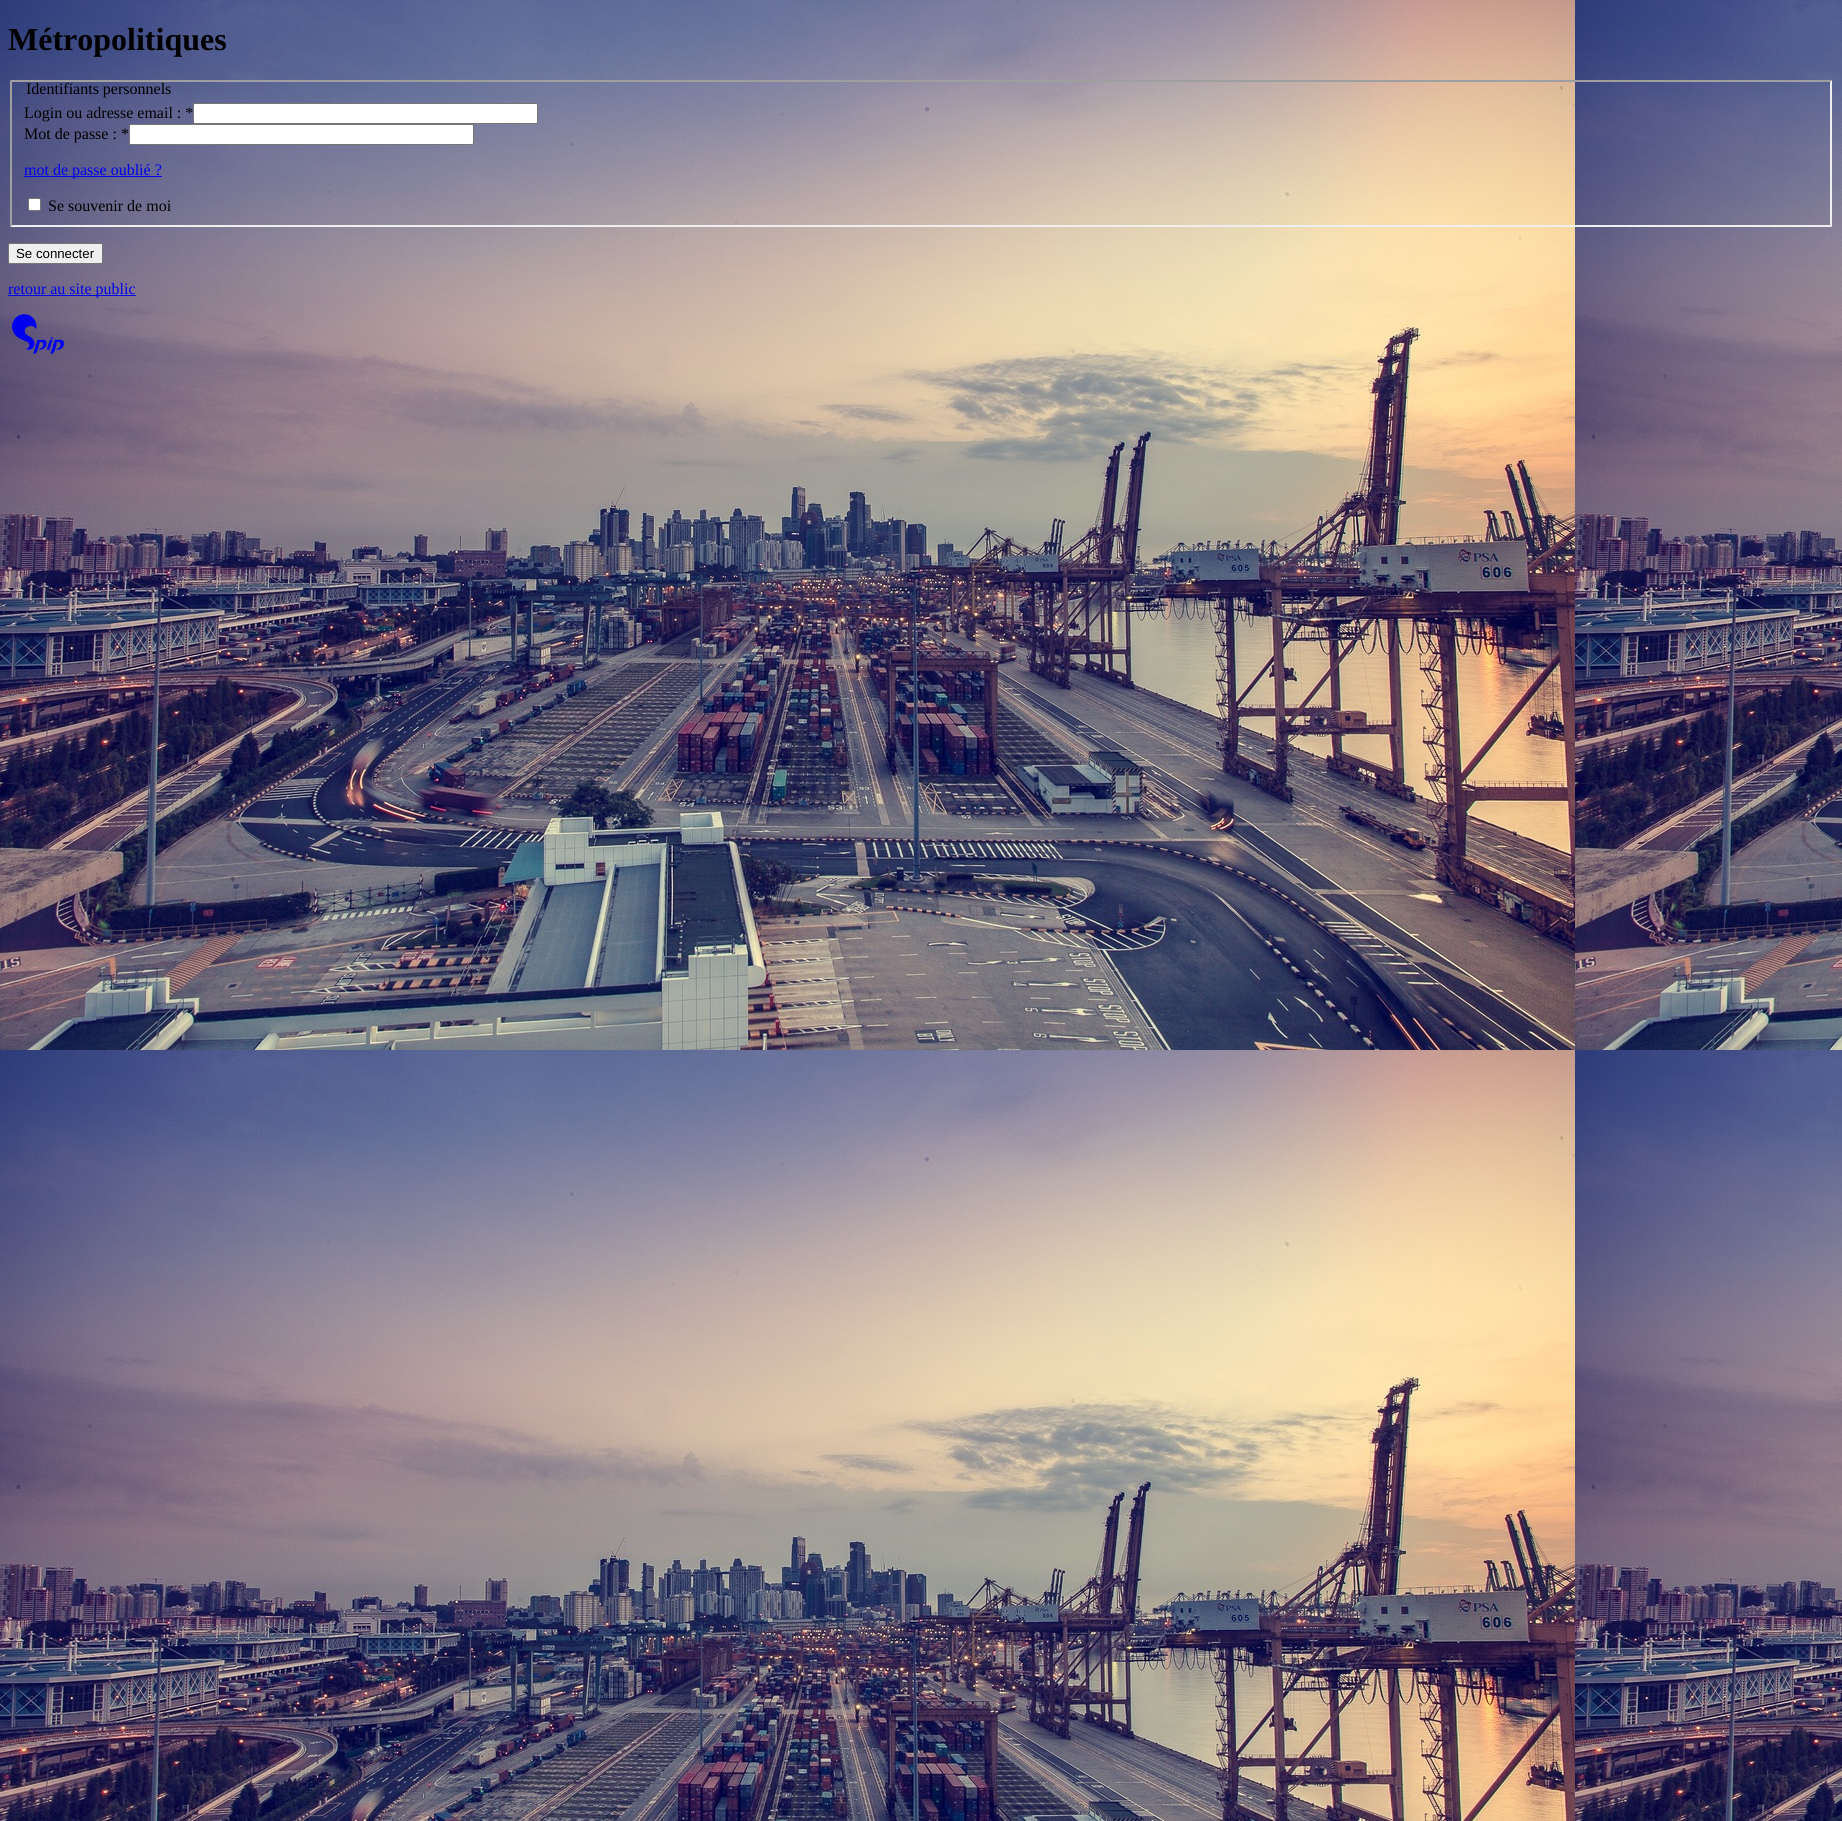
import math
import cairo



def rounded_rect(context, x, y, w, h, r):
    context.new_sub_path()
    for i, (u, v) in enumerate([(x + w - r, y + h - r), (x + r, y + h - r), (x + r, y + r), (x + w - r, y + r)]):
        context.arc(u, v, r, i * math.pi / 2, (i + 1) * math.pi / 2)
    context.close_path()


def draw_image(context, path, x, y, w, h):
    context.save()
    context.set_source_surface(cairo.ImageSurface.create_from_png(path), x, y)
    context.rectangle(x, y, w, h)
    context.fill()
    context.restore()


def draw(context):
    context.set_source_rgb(1, 1, 1)
    context.paint()
    draw_image(context, "images/1.png", 0, 0, 1842, 1821)
    context.set_source_rgb(159 / 255, 159 / 255, 159 / 255)
    context.new_path()
    context.move_to(10, 80)
    context.line_to(1832, 80)
    context.line_to(1830, 82)
    context.line_to(12, 82)
    context.close_path()
    context.fill()
    context.set_source_rgb(239 / 255, 239 / 255, 239 / 255)
    context.new_path()
    context.move_to(1832, 80)
    context.line_to(1832, 227)
    context.line_to(1830, 225)
    context.line_to(1830, 82)
    context.close_path()
    context.fill()
    context.new_path()
    context.move_to(1832, 227)
    context.line_to(10, 227)
    context.line_to(12, 225)
    context.line_to(1830, 225)
    context.close_path()
    context.fill()
    context.set_source_rgb(159 / 255, 159 / 255, 159 / 255)
    context.new_path()
    context.move_to(10, 227)
    context.line_to(10, 80)
    context.line_to(12, 82)
    context.line_to(12, 225)
    context.close_path()
    context.fill()
    context.set_source_rgb(1, 1, 1)
    rounded_rect(context, 193.5, 103.5, 344, 20, 1.5)
    context.fill_preserve()
    context.set_source_rgb(118 / 255, 118 / 255, 118 / 255)
    context.set_line_width(1)
    context.stroke()
    context.set_source_rgb(1, 1, 1)
    rounded_rect(context, 129.5, 124.5, 344, 20, 1.5)
    context.fill_preserve()
    context.set_source_rgb(118 / 255, 118 / 255, 118 / 255)
    context.stroke()
    context.set_source_rgb(0, 0, 238 / 255)
    context.rectangle(24, 176, 138, 1)
    context.fill()
    context.set_source_rgb(1, 1, 1)
    rounded_rect(context, 28.5, 198.5, 12, 12, 1.5)
    context.fill_preserve()
    context.set_source_rgb(118 / 255, 118 / 255, 118 / 255)
    context.stroke()
    context.set_source_rgb(239 / 255, 239 / 255, 239 / 255)
    rounded_rect(context, 8.5, 243.5, 94, 20, 1.5)
    context.fill_preserve()
    context.set_source_rgb(118 / 255, 118 / 255, 118 / 255)
    context.stroke()
    context.set_source_rgb(0, 0, 238 / 255)
    context.rectangle(8, 295, 128, 1)
    context.fill()
    draw_image(context, "images/2.png", 12, 314, 52, 40)
    context.select_font_face("Liberation Serif", cairo.FontSlant.NORMAL, cairo.FontWeight.BOLD)
    context.set_font_size(32)
    context.set_source_rgb(0, 0, 0)
    context.move_to(8, 50)
    context.show_text("Métropolitiques")
    context.select_font_face("Liberation Serif")
    context.set_font_size(16)
    context.move_to(26, 94)
    context.show_text("Identifiants personnels")
    context.move_to(24, 118)
    context.show_text("Login ou adresse email : *")
    context.move_to(24, 139)
    context.show_text("Mot de passe : *")
    context.set_source_rgb(0, 0, 238 / 255)
    context.move_to(24, 175)
    context.show_text("mot de passe oublié ?")
    context.set_source_rgb(0, 0, 0)
    context.move_to(48, 211)
    context.show_text("Se souvenir de moi")
    context.select_font_face("Liberation Sans")
    context.set_font_size(13.25)
    context.move_to(16, 258)
    context.show_text("Se connecter")
    context.select_font_face("Liberation Serif")
    context.set_font_size(16)
    context.set_source_rgb(0, 0, 238 / 255)
    context.move_to(8, 294)
    context.show_text("retour au site public")


surface = cairo.ImageSurface(cairo.Format.RGB24, 1842, 1821)
context = cairo.Context(surface)
options = cairo.FontOptions()
options.set_hint_metrics(cairo.HintMetrics.OFF)
options.set_hint_style(cairo.HintStyle.NONE)
context.set_font_options(options)
context.set_miter_limit(4)
draw(context)
surface.write_to_png("out.png")
